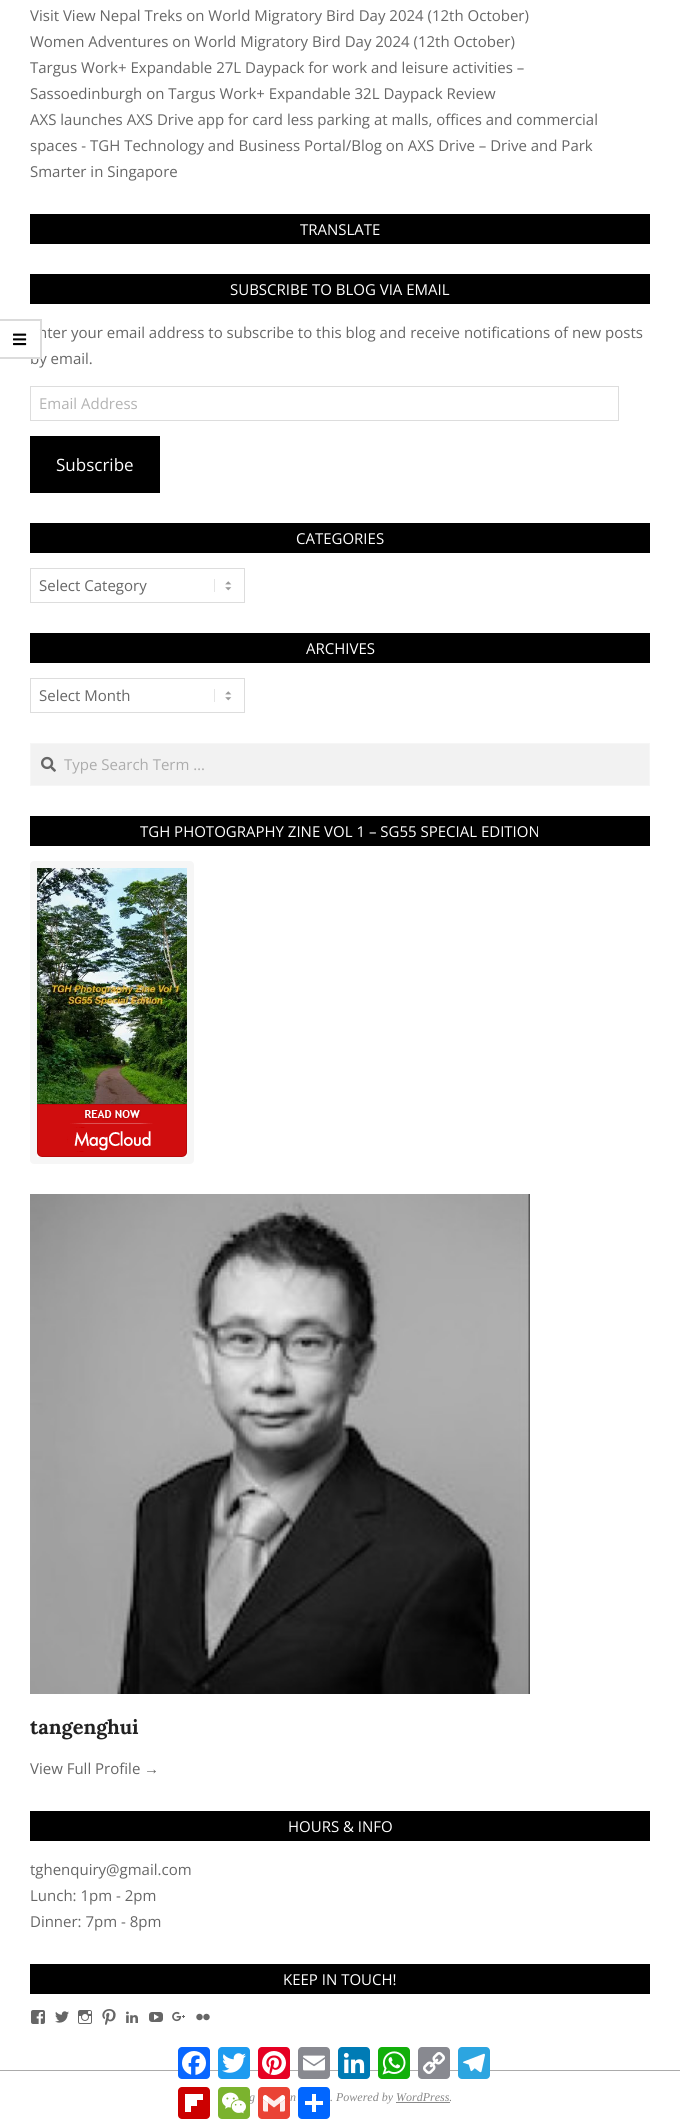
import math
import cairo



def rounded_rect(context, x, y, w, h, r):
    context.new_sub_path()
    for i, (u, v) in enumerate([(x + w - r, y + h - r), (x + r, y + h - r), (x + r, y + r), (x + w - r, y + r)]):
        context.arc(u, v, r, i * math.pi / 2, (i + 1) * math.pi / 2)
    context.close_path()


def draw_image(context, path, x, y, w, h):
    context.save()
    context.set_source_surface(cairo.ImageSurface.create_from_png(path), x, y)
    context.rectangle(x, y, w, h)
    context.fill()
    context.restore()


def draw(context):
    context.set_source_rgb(1, 1, 1)
    context.paint()
    context.set_source_rgb(219 / 255, 219 / 255, 219 / 255)
    context.new_path()
    context.move_to(0, 319)
    context.line_to(42, 319)
    context.line_to(40, 321)
    context.line_to(0, 321)
    context.close_path()
    context.fill()
    draw_image(context, "images/1.png", 13, 333, 14, 13)
    context.set_source_rgb(0, 0, 0)
    context.rectangle(30, 214, 620, 30)
    context.fill()
    context.rectangle(30, 274, 620, 30)
    context.fill()
    context.rectangle(30.5, 386.5, 588, 34)
    context.set_source_rgb(221 / 255, 221 / 255, 221 / 255)
    context.set_line_width(1)
    context.stroke()
    context.set_source_rgb(0, 0, 0)
    context.rectangle(30, 436, 130, 57)
    context.fill()
    context.rectangle(30, 523, 620, 30)
    context.fill()
    draw_image(context, "images/2.png", 214, 579, 18, 13)
    context.rectangle(30.5, 568.5, 214, 34)
    context.set_source_rgb(221 / 255, 221 / 255, 221 / 255)
    context.stroke()
    context.set_source_rgb(0, 0, 0)
    context.rectangle(30, 633, 620, 30)
    context.fill()
    draw_image(context, "images/2.png", 214, 689, 18, 13)
    context.rectangle(30.5, 678.5, 214, 34)
    context.set_source_rgb(221 / 255, 221 / 255, 221 / 255)
    context.stroke()
    context.set_source_rgb(242 / 255, 242 / 255, 242 / 255)
    context.rectangle(30.5, 743.5, 619, 42)
    context.fill_preserve()
    context.set_source_rgb(246 / 255, 246 / 255, 246 / 255)
    context.stroke()
    draw_image(context, "images/3.png", 41, 756, 15, 16)
    context.set_source_rgb(0, 0, 0)
    context.rectangle(30, 816, 620, 30)
    context.fill()
    rounded_rect(context, 33.5, 864.5, 157, 296, 0.5)
    context.set_source_rgb(246 / 255, 246 / 255, 246 / 255)
    context.set_line_width(7)
    context.stroke()
    draw_image(context, "images/4.png", 37, 868, 150, 236)
    draw_image(context, "images/5.png", 37, 1104, 150, 53)
    draw_image(context, "images/6.png", 30, 1194, 500, 500)
    context.set_source_rgb(0, 0, 0)
    context.rectangle(30, 1811, 620, 30)
    context.fill()
    context.rectangle(30, 1964, 620, 30)
    context.fill()
    draw_image(context, "images/7.png", 31, 2010, 14, 14)
    draw_image(context, "images/8.png", 55, 2011, 14, 12)
    draw_image(context, "images/9.png", 78, 2010, 14, 14)
    draw_image(context, "images/10.png", 102, 2009, 14, 16)
    draw_image(context, "images/11.png", 126, 2011, 12, 12)
    draw_image(context, "images/12.png", 149, 2012, 14, 10)
    draw_image(context, "images/13.png", 172, 2011, 13, 11)
    draw_image(context, "images/14.png", 196, 2013, 14, 8)
    context.set_source_rgb(171 / 255, 171 / 255, 171 / 255)
    context.rectangle(0, 2070, 680, 1)
    context.fill()
    context.set_source_rgb(136 / 255, 136 / 255, 136 / 255)
    context.rectangle(396, 2102, 54, 1)
    context.fill()
    context.set_source_rgb(8 / 255, 102 / 255, 1)
    rounded_rect(context, 178, 2047, 32, 32, 4)
    context.fill()
    draw_image(context, "images/15.png", 182, 2051, 24, 24)
    context.set_source_rgb(29 / 255, 155 / 255, 240 / 255)
    rounded_rect(context, 218, 2047, 32, 32, 4)
    context.fill()
    draw_image(context, "images/16.png", 222, 2053, 24, 20)
    context.set_source_rgb(230 / 255, 0, 35 / 255)
    rounded_rect(context, 258, 2047, 32, 32, 4)
    context.fill()
    draw_image(context, "images/17.png", 262, 2051, 24, 24)
    context.set_source_rgb(136 / 255, 137 / 255, 144 / 255)
    rounded_rect(context, 298, 2047, 32, 32, 4)
    context.fill()
    draw_image(context, "images/18.png", 303, 2055, 22, 16)
    context.set_source_rgb(0, 123 / 255, 181 / 255)
    rounded_rect(context, 338, 2047, 32, 32, 4)
    context.fill()
    draw_image(context, "images/19.png", 343, 2052, 22, 22)
    context.set_source_rgb(18 / 255, 175 / 255, 10 / 255)
    rounded_rect(context, 378, 2047, 32, 32, 4)
    context.fill()
    draw_image(context, "images/20.png", 382, 2051, 24, 24)
    context.set_source_rgb(136 / 255, 137 / 255, 144 / 255)
    rounded_rect(context, 418, 2047, 32, 32, 4)
    context.fill()
    draw_image(context, "images/21.png", 423, 2052, 22, 22)
    context.set_source_rgb(44 / 255, 165 / 255, 224 / 255)
    rounded_rect(context, 458, 2047, 32, 32, 4)
    context.fill()
    draw_image(context, "images/22.png", 463, 2053, 22, 20)
    context.set_source_rgb(204 / 255, 0, 0)
    rounded_rect(context, 178, 2087, 32, 32, 4)
    context.fill()
    context.set_source_rgb(1, 1, 1)
    context.rectangle(191, 2100, 6, 6)
    context.fill()
    context.rectangle(185, 2094, 18, 6)
    context.fill()
    context.rectangle(185, 2094, 6, 18)
    context.fill()
    context.set_source_rgb(234 / 255, 67 / 255, 53 / 255)
    rounded_rect(context, 258, 2087, 32, 32, 4)
    context.fill()
    draw_image(context, "images/24.png", 263, 2095, 22, 17)
    context.set_source_rgb(1 / 255, 102 / 255, 1)
    rounded_rect(context, 298, 2087, 32, 32, 4)
    context.fill()
    context.set_source_rgb(1, 1, 1)
    context.rectangle(312, 2094, 4, 18)
    context.fill()
    context.rectangle(305, 2101, 18, 4)
    context.fill()
    context.select_font_face("Open Sans")
    context.set_font_size(15)
    context.set_source_rgb(102 / 255, 102 / 255, 102 / 255)
    context.move_to(30, 21)
    context.show_text("Visit View Nepal Treks on World Migratory Bird Day 2024 (12th October)")
    context.move_to(30, 47)
    context.show_text("Women Adventures on World Migratory Bird Day 2024 (12th October)")
    context.move_to(30, 73)
    context.show_text("Targus Work+ Expandable 27L Daypack for work and leisure activities –")
    context.move_to(30, 99)
    context.show_text("Sassoedinburgh on Targus Work+ Expandable 32L Daypack Review")
    context.move_to(30, 125)
    context.show_text("AXS launches AXS Drive app for card less parking at malls, offices and commercial")
    context.move_to(30, 151)
    context.show_text("spaces - TGH Technology and Business Portal/Blog on AXS Drive – Drive and Park")
    context.move_to(30, 177)
    context.show_text("Smarter in Singapore")
    context.set_source_rgb(1, 1, 1)
    context.move_to(300, 235)
    context.show_text("TRANSLATE")
    context.move_to(230, 295)
    context.show_text("SUBSCRIBE TO BLOG VIA EMAIL")
    context.set_source_rgb(102 / 255, 102 / 255, 102 / 255)
    context.move_to(38, 338)
    context.show_text("nter your email address to subscribe to this blog and receive notifications of new posts")
    context.move_to(30, 364)
    context.show_text("by email.")
    context.set_source_rgb(1, 1, 1)
    context.rectangle(31, 330, 11, 29)
    context.fill()
    context.set_source_rgba(0, 0, 0, 0.14)
    context.new_path()
    context.move_to(42, 319)
    context.line_to(42, 359)
    context.line_to(40, 357)
    context.line_to(40, 321)
    context.close_path()
    context.fill()
    context.new_path()
    context.move_to(42, 359)
    context.line_to(0, 359)
    context.line_to(0, 357)
    context.line_to(40, 357)
    context.close_path()
    context.fill()
    context.set_source_rgb(179 / 255, 179 / 255, 179 / 255)
    context.move_to(39, 409)
    context.show_text("Email Address")
    context.set_font_size(17)
    context.set_source_rgb(1, 1, 1)
    context.move_to(56, 471)
    context.show_text("Subscribe")
    context.set_font_size(15)
    context.move_to(296, 544)
    context.show_text("CATEGORIES")
    context.set_source_rgb(102 / 255, 102 / 255, 102 / 255)
    context.move_to(39, 591)
    context.show_text("Select Category")
    context.set_source_rgb(1, 1, 1)
    context.move_to(306, 654)
    context.show_text("ARCHIVES")
    context.set_source_rgb(102 / 255, 102 / 255, 102 / 255)
    context.move_to(39, 701)
    context.show_text("Select Month")
    context.set_source_rgb(172 / 255, 172 / 255, 172 / 255)
    context.move_to(64, 770)
    context.show_text("Type Search Term …")
    context.set_source_rgb(1, 1, 1)
    context.move_to(140, 837)
    context.show_text("TGH PHOTOGRAPHY ZINE VOL 1 – SG55 SPECIAL EDITION")
    context.select_font_face("Lora", cairo.FontSlant.NORMAL, cairo.FontWeight.BOLD)
    context.set_font_size(20)
    context.set_source_rgb(34 / 255, 34 / 255, 34 / 255)
    context.move_to(30, 1734)
    context.show_text("tangenghui")
    context.select_font_face("Open Sans")
    context.set_font_size(15)
    context.set_source_rgb(102 / 255, 102 / 255, 102 / 255)
    context.move_to(30, 1774)
    context.show_text("View Full Profile")
    context.select_font_face("Liberation Sans")
    context.move_to(144, 1774)
    context.show_text("→")
    context.select_font_face("Open Sans")
    context.set_source_rgb(1, 1, 1)
    context.move_to(288, 1832)
    context.show_text("HOURS & INFO")
    context.set_source_rgb(102 / 255, 102 / 255, 102 / 255)
    context.move_to(30, 1875)
    context.show_text("tghenquiry@gmail.com")
    context.move_to(30, 1901)
    context.show_text("Lunch: 1pm - 2pm")
    context.move_to(30, 1927)
    context.show_text("Dinner: 7pm - 8pm")
    context.set_source_rgb(1, 1, 1)
    context.move_to(283, 1985)
    context.show_text("KEEP IN TOUCH!")
    context.select_font_face("Liberation Serif", cairo.FontSlant.ITALIC)
    context.set_font_size(12)
    context.set_source_rgb(136 / 255, 136 / 255, 136 / 255)
    context.move_to(249, 2101)
    context.show_text("g")
    context.move_to(290, 2101)
    context.show_text("n")
    context.move_to(330, 2101)
    context.show_text(". Powered by WordPress.")
    context.set_source_rgb(123 / 255, 179 / 255, 46 / 255)
    rounded_rect(context, 218, 2087, 32, 32, 4)
    context.fill()
    draw_image(context, "images/23.png", 222, 2092, 24, 22)


surface = cairo.ImageSurface(cairo.Format.RGB24, 680, 2127)
context = cairo.Context(surface)
options = cairo.FontOptions()
options.set_hint_metrics(cairo.HintMetrics.OFF)
options.set_hint_style(cairo.HintStyle.NONE)
context.set_font_options(options)
context.set_miter_limit(4)
draw(context)
surface.write_to_png("out.png")
